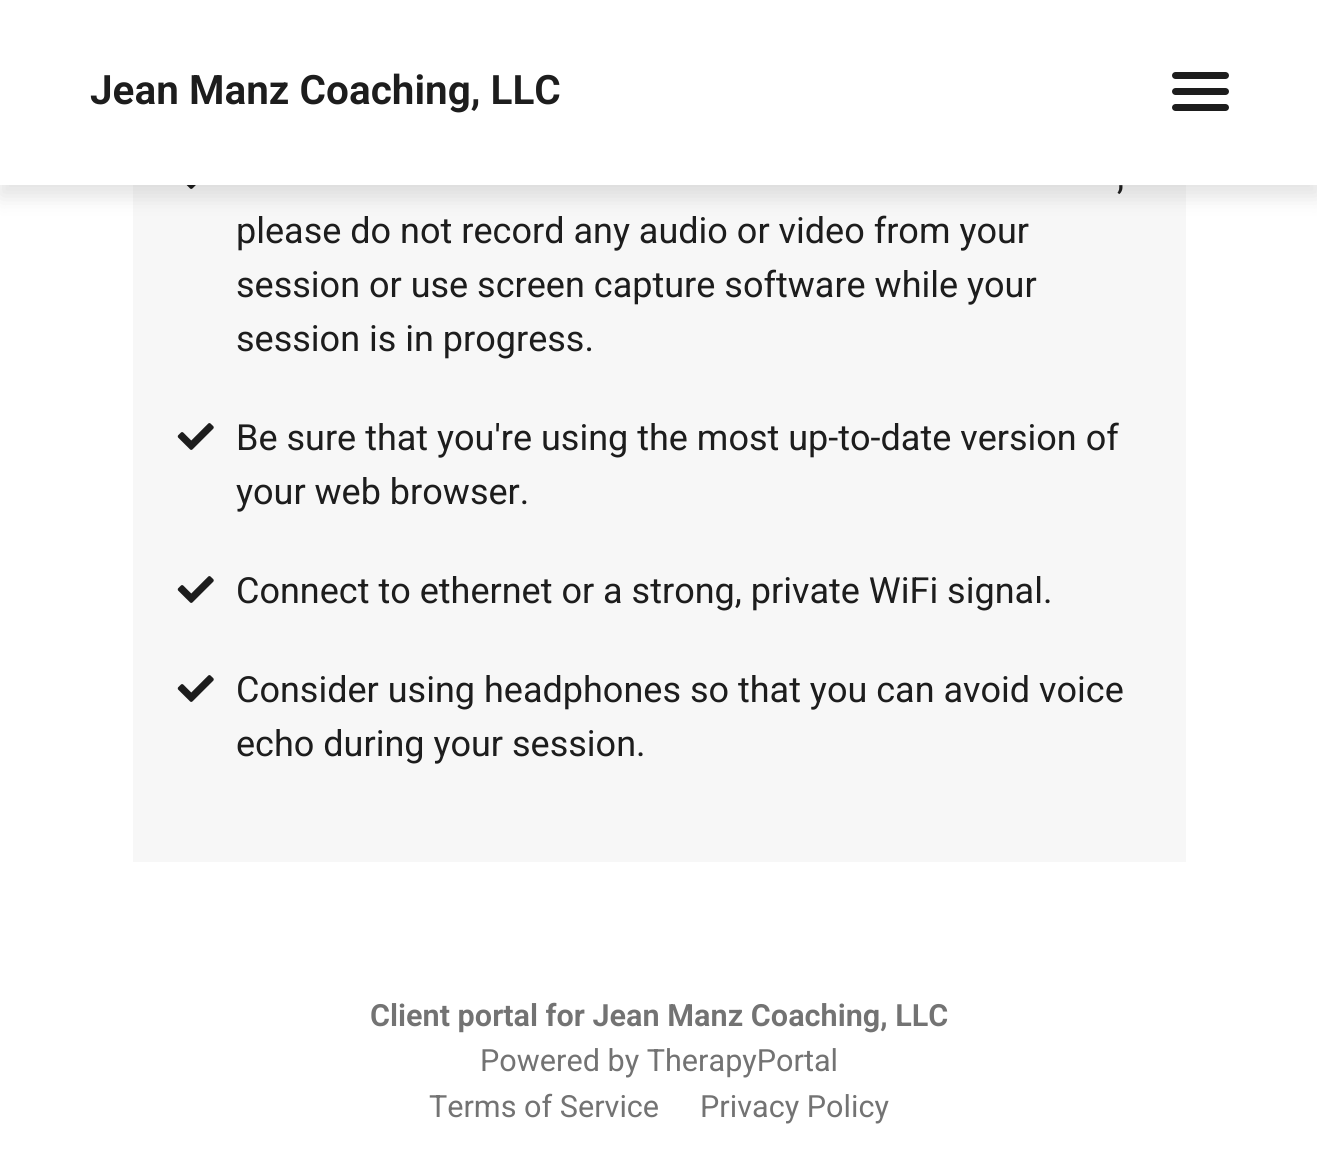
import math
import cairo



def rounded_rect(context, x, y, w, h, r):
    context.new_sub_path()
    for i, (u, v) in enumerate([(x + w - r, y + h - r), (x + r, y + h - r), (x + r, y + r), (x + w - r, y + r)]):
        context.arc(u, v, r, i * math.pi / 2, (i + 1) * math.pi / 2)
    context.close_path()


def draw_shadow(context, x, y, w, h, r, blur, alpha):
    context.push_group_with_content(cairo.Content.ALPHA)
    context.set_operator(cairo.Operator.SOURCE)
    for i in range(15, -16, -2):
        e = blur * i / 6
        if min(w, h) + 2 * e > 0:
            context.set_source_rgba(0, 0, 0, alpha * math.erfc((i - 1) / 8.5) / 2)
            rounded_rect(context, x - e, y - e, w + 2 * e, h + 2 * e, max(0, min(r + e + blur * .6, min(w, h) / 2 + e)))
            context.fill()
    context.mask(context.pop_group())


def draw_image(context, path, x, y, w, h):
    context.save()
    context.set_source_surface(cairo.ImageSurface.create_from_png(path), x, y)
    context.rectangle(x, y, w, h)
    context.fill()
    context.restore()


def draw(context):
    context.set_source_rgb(1, 1, 1)
    context.paint()
    context.set_source_rgb(247 / 255, 247 / 255, 247 / 255)
    context.rectangle(133, 185, 1053, 677)
    context.fill()
    draw_image(context, "images/1.png", 186, 185, 10, 4)
    context.set_source_rgb(0, 0, 0)
    draw_shadow(context, 0, 11, 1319, 185, 0, 11, 0.12)
    context.set_source_rgb(1, 1, 1)
    context.rectangle(0, 0, 1317, 185)
    context.fill()
    context.set_source_rgb(29 / 255, 29 / 255, 29 / 255)
    rounded_rect(context, 1172, 72, 57, 7, 3.5)
    context.fill()
    rounded_rect(context, 1172, 88, 57, 7, 3.5)
    context.fill()
    rounded_rect(context, 1172, 104, 57, 7, 3.5)
    context.fill()
    draw_image(context, "images/2.png", 177, 423, 37, 27)
    draw_image(context, "images/2.png", 177, 576, 37, 27)
    draw_image(context, "images/2.png", 177, 675, 37, 27)
    context.select_font_face("Heebo SemiBold")
    context.set_font_size(40.5)
    context.move_to(90, 104)
    context.show_text("Jean Manz Coaching, LLC")
    context.select_font_face("Heebo")
    context.set_font_size(36)
    context.move_to(1117, 189)
    context.show_text(",")
    context.move_to(236, 243)
    context.show_text("please do not record any audio or video from your")
    context.move_to(236, 297)
    context.show_text("session or use screen capture software while your")
    context.move_to(236, 351)
    context.show_text("session is in progress.")
    context.move_to(236, 450)
    context.show_text("Be sure that you're using the most up-to-date version of")
    context.move_to(236, 504)
    context.show_text("your web browser.")
    context.move_to(236, 603)
    context.show_text("Connect to ethernet or a strong, private WiFi signal.")
    context.move_to(236, 702)
    context.show_text("Consider using headphones so that you can avoid voice")
    context.move_to(236, 756)
    context.show_text("echo during your session.")
    context.select_font_face("Heebo SemiBold")
    context.set_font_size(30.6)
    context.set_source_rgb(115 / 255, 115 / 255, 115 / 255)
    context.move_to(370, 1026)
    context.show_text("Client portal for Jean Manz Coaching, LLC")
    context.select_font_face("Heebo")
    context.move_to(480, 1071)
    context.show_text("Powered by TherapyPortal")
    context.move_to(429, 1117)
    context.show_text("Terms of Service")
    context.move_to(700, 1117)
    context.show_text("Privacy Policy")


surface = cairo.ImageSurface(cairo.Format.RGB24, 1317, 1156)
context = cairo.Context(surface)
options = cairo.FontOptions()
options.set_hint_metrics(cairo.HintMetrics.OFF)
options.set_hint_style(cairo.HintStyle.NONE)
context.set_font_options(options)
context.set_miter_limit(4)
draw(context)
surface.write_to_png("out.png")
